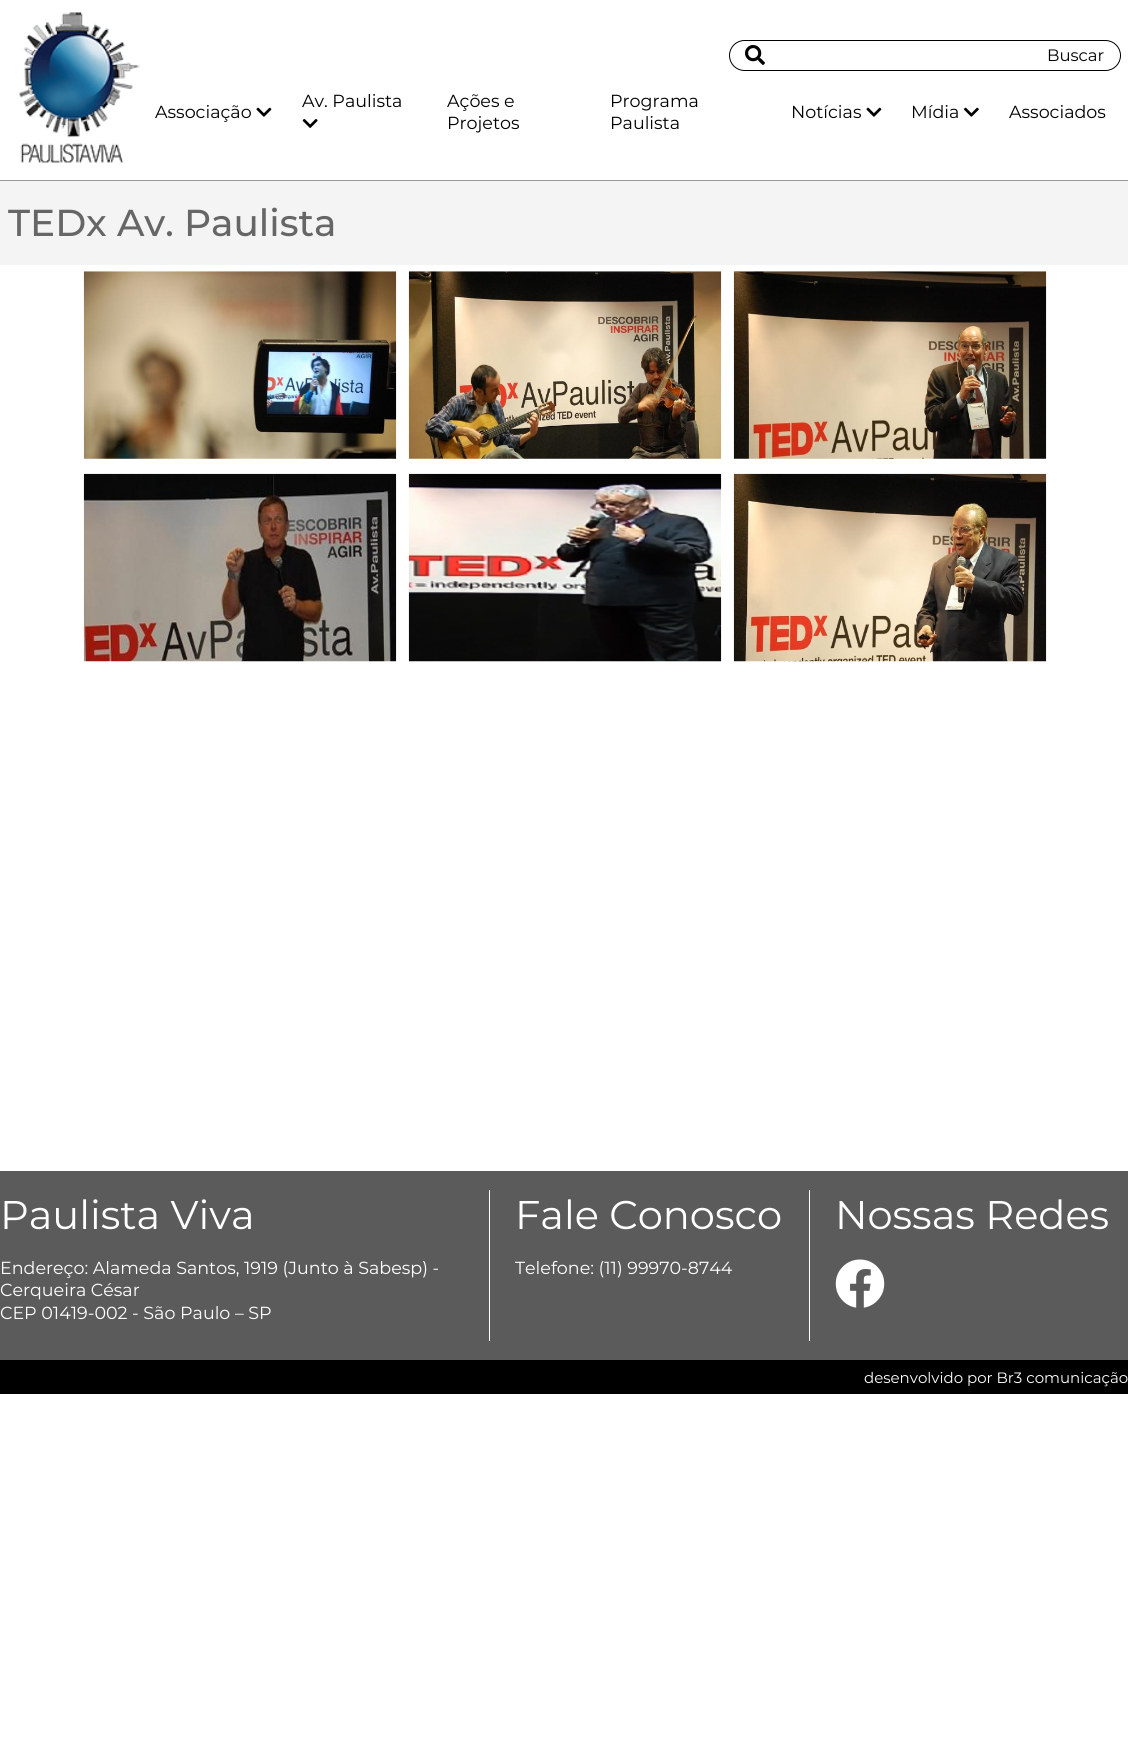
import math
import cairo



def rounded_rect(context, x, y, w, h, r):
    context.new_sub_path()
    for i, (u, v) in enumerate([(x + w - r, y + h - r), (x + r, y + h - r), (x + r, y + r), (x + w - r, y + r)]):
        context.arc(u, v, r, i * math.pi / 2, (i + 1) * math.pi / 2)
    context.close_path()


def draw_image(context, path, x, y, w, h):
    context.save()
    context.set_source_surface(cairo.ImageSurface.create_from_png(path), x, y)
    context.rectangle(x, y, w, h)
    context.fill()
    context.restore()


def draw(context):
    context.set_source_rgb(1, 1, 1)
    context.paint()
    draw_image(context, "images/1.png", 19, 12, 121, 151)
    rounded_rect(context, 729.5, 40.5, 391, 30, 15)
    context.set_source_rgb(0, 0, 0)
    context.set_line_width(1)
    context.stroke()
    draw_image(context, "images/2.png", 745, 45, 20, 20)
    draw_image(context, "images/3.png", 256, 107, 16, 10)
    draw_image(context, "images/4.png", 302, 119, 16, 9)
    draw_image(context, "images/3.png", 866, 107, 16, 10)
    draw_image(context, "images/5.png", 964, 107, 15, 10)
    context.set_source_rgb(244 / 255, 244 / 255, 244 / 255)
    context.rectangle(0, 181, 1128, 84)
    context.fill()
    context.set_source_rgb(153 / 255, 153 / 255, 153 / 255)
    context.rectangle(0, 180, 1128, 1)
    context.fill()
    draw_image(context, "images/6.png", 83, 271, 314, 188)
    draw_image(context, "images/7.png", 408, 271, 314, 188)
    draw_image(context, "images/8.png", 733, 271, 314, 188)
    draw_image(context, "images/9.png", 83, 473, 314, 189)
    draw_image(context, "images/10.png", 408, 473, 314, 189)
    draw_image(context, "images/11.png", 733, 473, 314, 189)
    context.set_source_rgb(91 / 255, 91 / 255, 91 / 255)
    context.rectangle(0, 1171, 1128, 189)
    context.fill()
    context.set_source_rgb(1, 1, 1)
    context.rectangle(489, 1190, 1, 151)
    context.fill()
    context.rectangle(809, 1190, 1, 151)
    context.fill()
    draw_image(context, "images/12.png", 835, 1259, 50, 49)
    context.set_source_rgb(0, 0, 0)
    context.rectangle(0, 1360, 1128, 34)
    context.fill()
    context.select_font_face("Montserrat")
    context.set_font_size(16.5)
    context.move_to(1047, 61)
    context.show_text("Buscar")
    context.set_font_size(17.5)
    context.move_to(155, 118)
    context.show_text("Associação")
    context.move_to(302, 107)
    context.show_text("Av. Paulista")
    context.move_to(447, 107)
    context.show_text("Ações e")
    context.move_to(447, 129)
    context.show_text("Projetos")
    context.move_to(610, 107)
    context.show_text("Programa")
    context.move_to(610, 129)
    context.show_text("Paulista")
    context.move_to(791, 118)
    context.show_text("Notícias")
    context.move_to(911, 118)
    context.show_text("Mídia")
    context.move_to(1009, 118)
    context.show_text("Associados")
    context.select_font_face("Montserrat Medium")
    context.set_font_size(37.5)
    context.set_source_rgb(102 / 255, 102 / 255, 102 / 255)
    context.move_to(8, 236)
    context.show_text("TEDx Av. Paulista")
    context.select_font_face("Montserrat")
    context.set_font_size(40)
    context.set_source_rgb(1, 1, 1)
    context.move_to(0, 1229)
    context.show_text("Paulista Viva")
    context.set_font_size(17.5)
    context.move_to(0, 1274)
    context.show_text("Endereço: Alameda Santos, 1919 (Junto à Sabesp) -")
    context.move_to(0, 1296)
    context.show_text("Cerqueira César")
    context.move_to(0, 1319)
    context.show_text("CEP 01419-002 - São Paulo – SP")
    context.set_font_size(40)
    context.move_to(515, 1229)
    context.show_text("Fale Conosco")
    context.set_font_size(17.5)
    context.move_to(515, 1274)
    context.show_text("Telefone: (11) 99970-8744")
    context.set_font_size(40)
    context.move_to(835, 1229)
    context.show_text("Nossas Redes")
    context.set_font_size(15)
    context.move_to(864, 1383)
    context.show_text("desenvolvido por Br3 comunicação")


surface = cairo.ImageSurface(cairo.Format.RGB24, 1128, 1761)
context = cairo.Context(surface)
options = cairo.FontOptions()
options.set_hint_metrics(cairo.HintMetrics.OFF)
options.set_hint_style(cairo.HintStyle.NONE)
context.set_font_options(options)
context.set_miter_limit(4)
draw(context)
surface.write_to_png("out.png")
